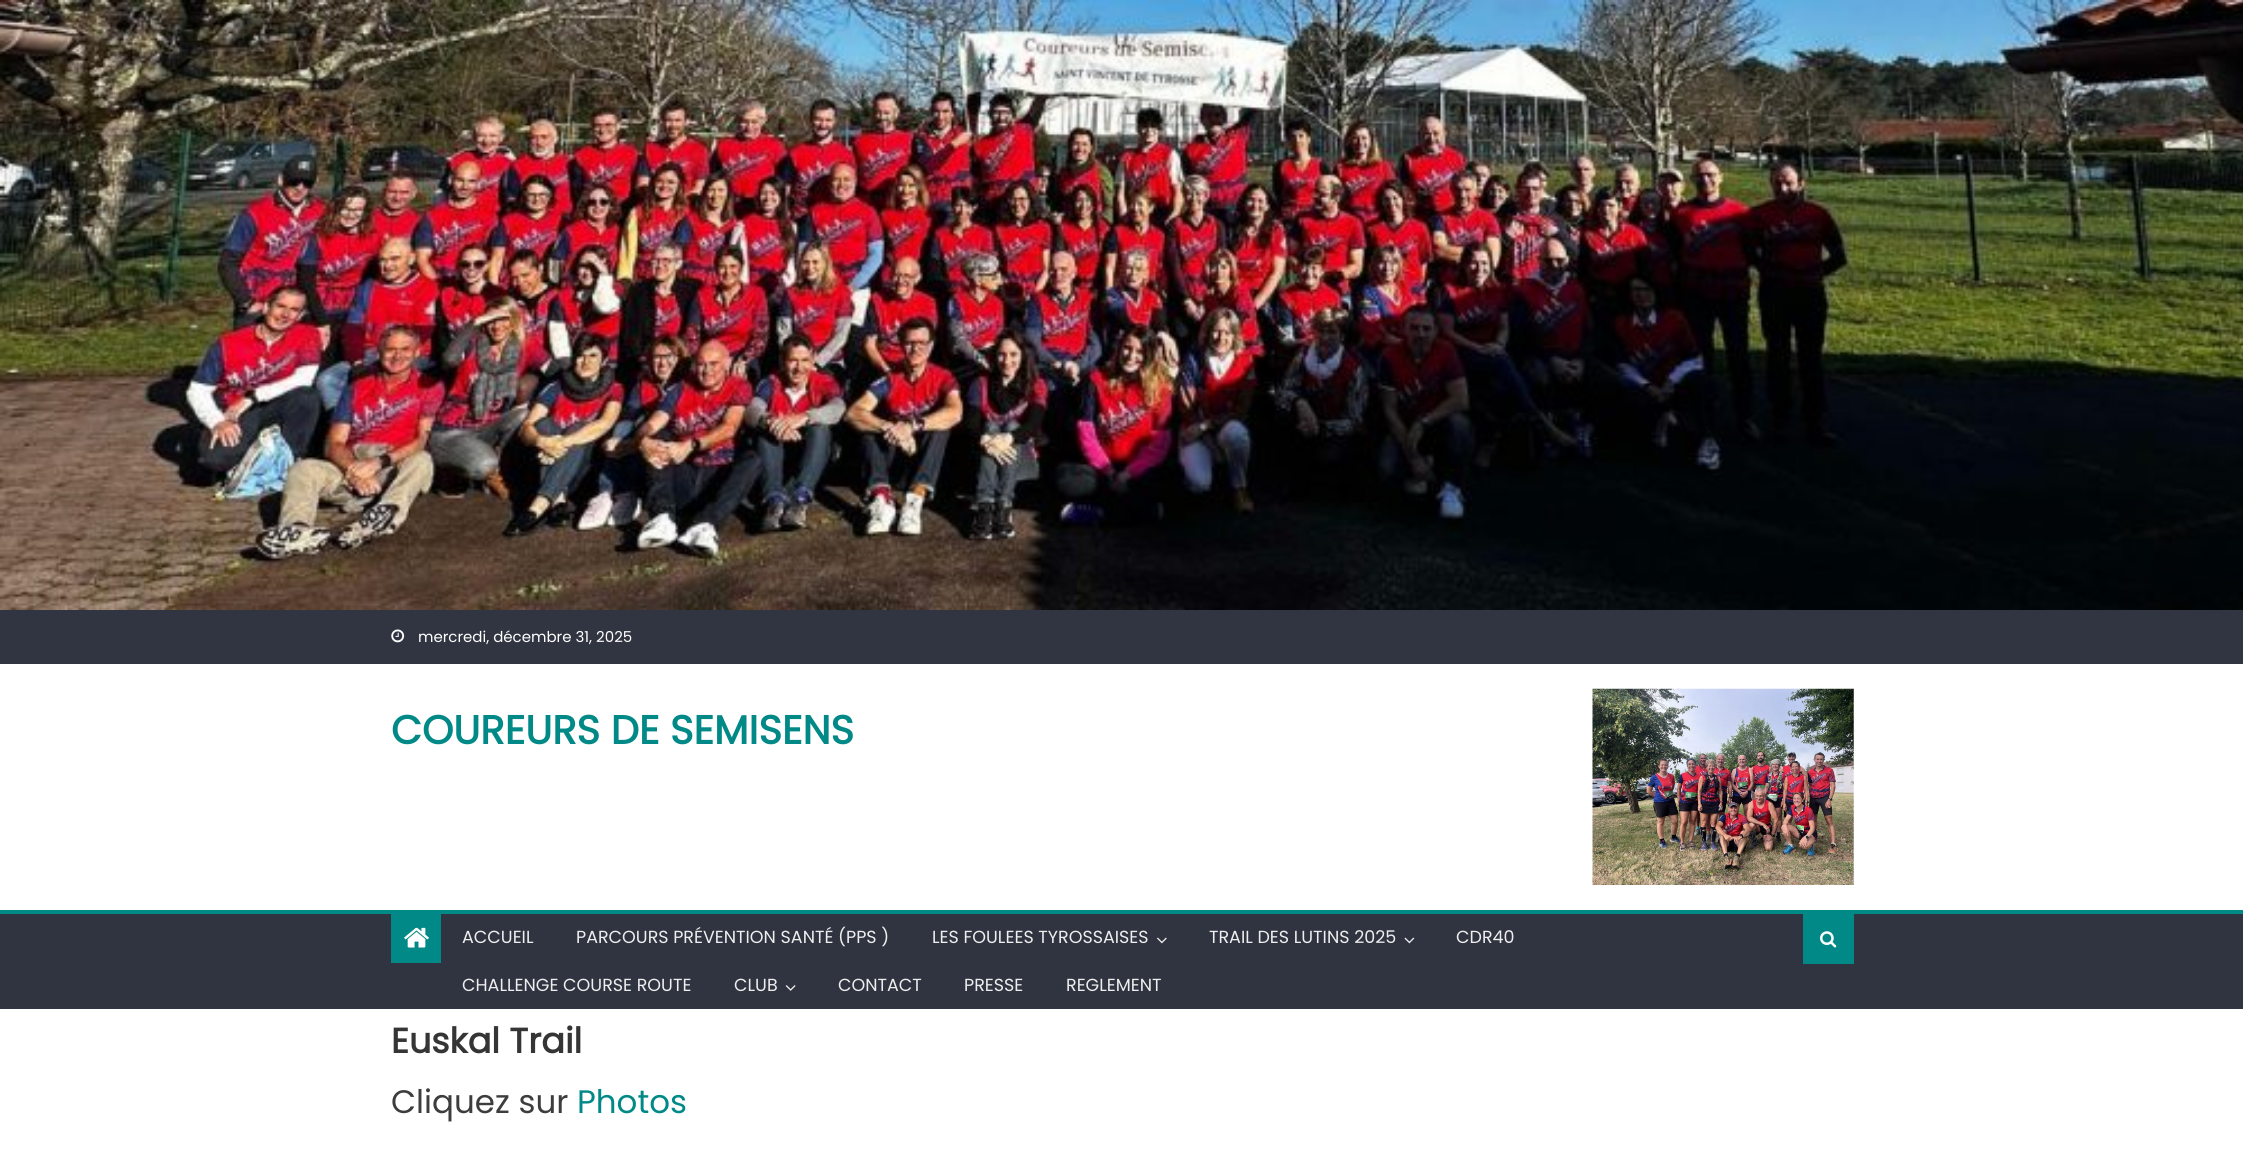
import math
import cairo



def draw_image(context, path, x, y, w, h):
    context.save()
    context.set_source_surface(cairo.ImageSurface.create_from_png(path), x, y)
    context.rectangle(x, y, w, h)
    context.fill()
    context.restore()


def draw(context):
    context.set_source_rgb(1, 1, 1)
    context.paint()
    draw_image(context, "images/1.png", 0, 0, 2243, 610)
    context.set_source_rgb(49 / 255, 53 / 255, 65 / 255)
    context.rectangle(0, 610, 2243, 54)
    context.fill()
    draw_image(context, "images/2.png", 391, 629, 14, 14)
    draw_image(context, "images/3.png", 1592, 688, 262, 197)
    context.set_source_rgb(48 / 255, 52 / 255, 64 / 255)
    context.rectangle(0, 914, 2243, 95)
    context.fill()
    context.set_source_rgb(0, 137 / 255, 135 / 255)
    context.rectangle(0, 910, 2243, 4)
    context.fill()
    context.rectangle(391, 914, 50, 49)
    context.fill()
    draw_image(context, "images/4.png", 404, 927, 25, 21)
    draw_image(context, "images/5.png", 1157, 937, 10, 7)
    draw_image(context, "images/6.png", 1404, 937, 11, 7)
    draw_image(context, "images/7.png", 785, 985, 11, 6)
    context.rectangle(1803, 914, 51, 50)
    context.fill()
    draw_image(context, "images/8.png", 1820, 931, 17, 17)
    context.select_font_face("Poppins")
    context.set_font_size(15)
    context.set_source_rgb(1, 1, 1)
    context.move_to(418, 642)
    context.show_text("mercredi, décembre 31, 2025")
    context.select_font_face("Poppins", cairo.FontSlant.NORMAL, cairo.FontWeight.BOLD)
    context.set_font_size(40)
    context.set_source_rgb(0, 137 / 255, 135 / 255)
    context.move_to(391, 744)
    context.show_text("COUREURS DE SEMISENS")
    context.select_font_face("Poppins")
    context.set_font_size(17.5)
    context.set_source_rgb(238 / 255, 238 / 255, 238 / 255)
    context.move_to(462, 943)
    context.show_text("ACCUEIL")
    context.move_to(576, 943)
    context.show_text("PARCOURS PRÉVENTION SANTÉ (PPS )")
    context.move_to(932, 943)
    context.show_text("LES FOULEES TYROSSAISES")
    context.move_to(1209, 943)
    context.show_text("TRAIL DES LUTINS 2025")
    context.move_to(1456, 943)
    context.show_text("CDR40")
    context.move_to(462, 991)
    context.show_text("CHALLENGE COURSE ROUTE")
    context.move_to(734, 991)
    context.show_text("CLUB")
    context.move_to(838, 991)
    context.show_text("CONTACT")
    context.move_to(964, 991)
    context.show_text("PRESSE")
    context.move_to(1066, 991)
    context.show_text("REGLEMENT")
    context.select_font_face("Poppins", cairo.FontSlant.NORMAL, cairo.FontWeight.BOLD)
    context.set_font_size(35)
    context.set_source_rgb(53 / 255, 53 / 255, 53 / 255)
    context.move_to(391, 1053)
    context.show_text("Euskal Trail")
    context.select_font_face("Poppins")
    context.set_font_size(32.5)
    context.set_source_rgb(61 / 255, 61 / 255, 61 / 255)
    context.move_to(391, 1113)
    context.show_text("Cliquez sur")
    context.set_source_rgb(0, 137 / 255, 135 / 255)
    context.move_to(577, 1113)
    context.show_text("Photos")


surface = cairo.ImageSurface(cairo.Format.RGB24, 2243, 1159)
context = cairo.Context(surface)
options = cairo.FontOptions()
options.set_hint_metrics(cairo.HintMetrics.OFF)
options.set_hint_style(cairo.HintStyle.NONE)
context.set_font_options(options)
context.set_miter_limit(4)
draw(context)
surface.write_to_png("out.png")
